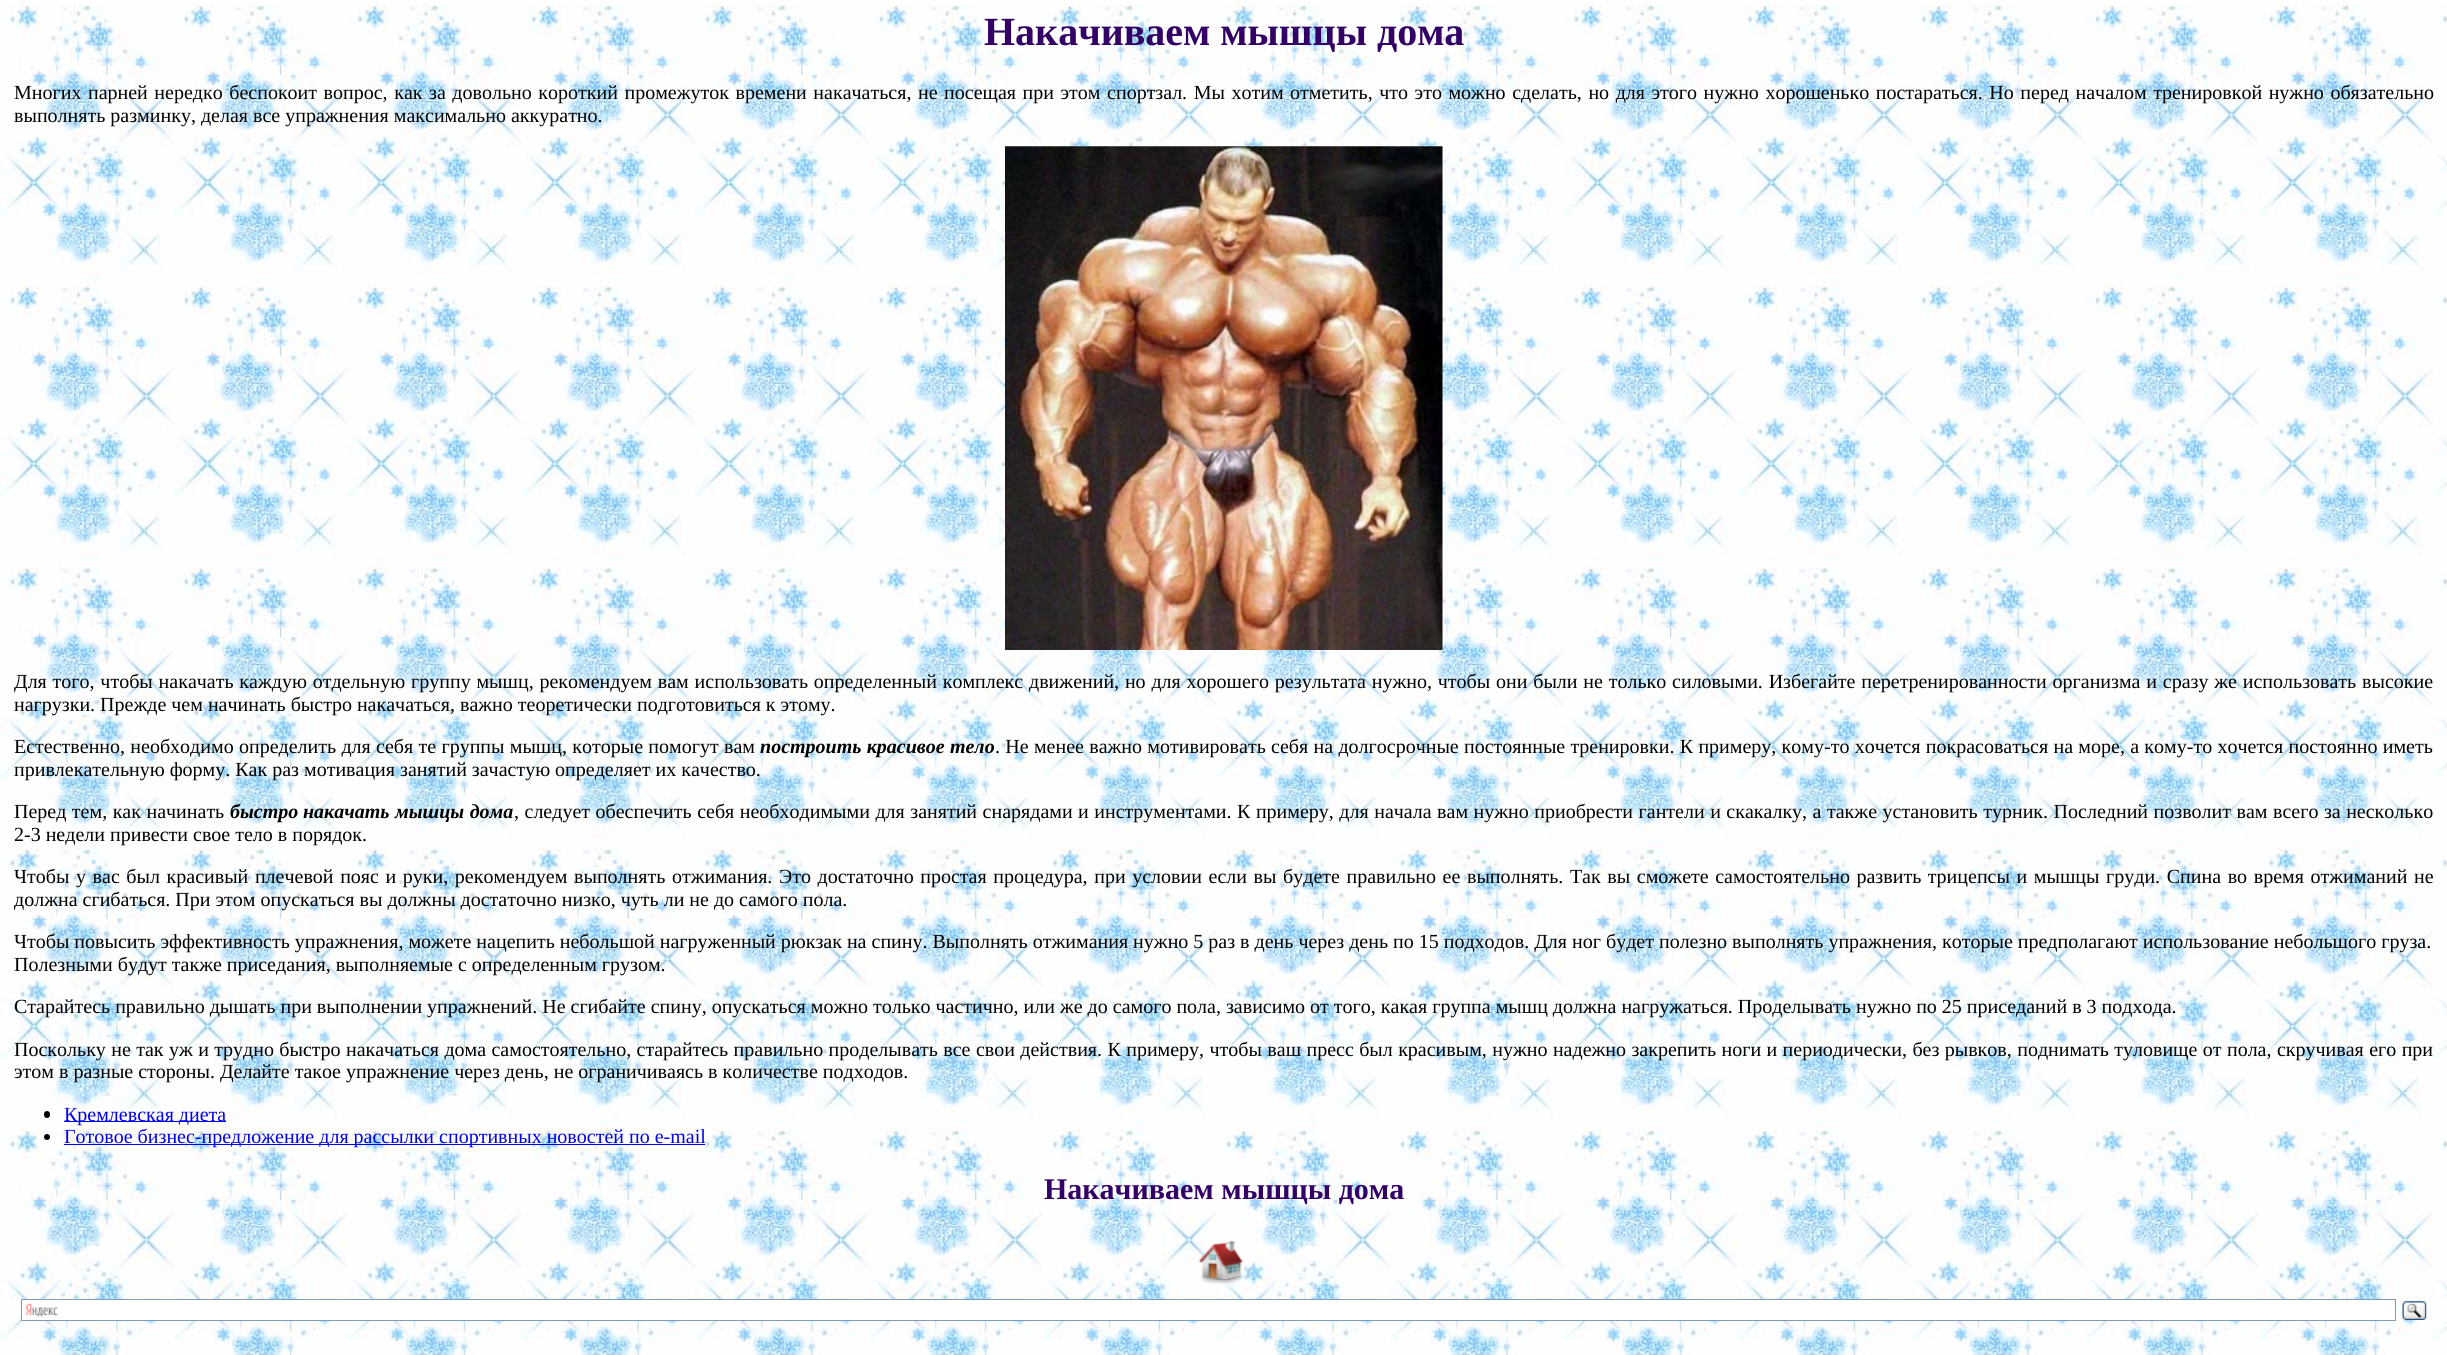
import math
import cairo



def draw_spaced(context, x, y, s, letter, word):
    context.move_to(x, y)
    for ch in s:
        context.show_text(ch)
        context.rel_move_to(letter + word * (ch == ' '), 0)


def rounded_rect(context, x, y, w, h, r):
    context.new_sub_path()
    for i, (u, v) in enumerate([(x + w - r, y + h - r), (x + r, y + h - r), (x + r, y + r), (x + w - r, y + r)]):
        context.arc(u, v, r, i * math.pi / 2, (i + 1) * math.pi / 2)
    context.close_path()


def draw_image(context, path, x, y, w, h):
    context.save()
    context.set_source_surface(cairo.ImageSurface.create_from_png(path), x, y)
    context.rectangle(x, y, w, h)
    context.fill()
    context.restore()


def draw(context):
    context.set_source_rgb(1, 1, 1)
    context.paint()
    draw_image(context, "images/1.png", 0, 2, 2447, 1353)
    draw_image(context, "images/2.png", 1005, 146, 438, 504)
    context.set_source_rgb(0, 0, 0)
    rounded_rect(context, 44, 1111, 6, 7, 3)
    context.fill()
    context.set_source_rgb(0, 0, 238 / 255)
    context.rectangle(64, 1121, 162, 1)
    context.fill()
    context.set_source_rgb(0, 0, 0)
    context.arc(47, 1137, 3, 0, 2 * math.pi)
    context.fill()
    context.set_source_rgb(0, 0, 238 / 255)
    context.rectangle(64, 1144, 641, 1)
    context.fill()
    draw_image(context, "images/3.png", 1198, 1240, 46, 44)
    context.set_source_rgb(1, 1, 1)
    context.rectangle(22, 1300, 2373, 20)
    context.fill()
    draw_image(context, "images/4.png", 25, 1303, 33, 15)
    context.rectangle(21.5, 1299.5, 2374, 21)
    context.set_source_rgb(127 / 255, 157 / 255, 185 / 255)
    context.set_line_width(1)
    context.stroke()
    draw_image(context, "images/5.png", 2402, 1301, 25, 19)
    context.select_font_face("Liberation Serif", cairo.FontSlant.NORMAL, cairo.FontWeight.BOLD)
    context.set_font_size(40)
    context.set_source_rgb(51 / 255, 0, 102 / 255)
    context.move_to(984, 45)
    context.show_text("Накачиваем мышцы дома")
    context.select_font_face("Liberation Serif")
    context.set_font_size(20)
    context.set_source_rgb(0, 0, 0)
    draw_spaced(context, 14, 99, "Многих парней нередко беспокоит вопрос, как за довольно короткий промежуток времени накачаться, не посещая при этом спортзал. Мы хотим отметить, что это можно сделать, но для этого нужно хорошенько постараться. Но перед началом тренировкой нужно обязательно", 0, 1.55)
    context.move_to(14, 122)
    context.show_text("выполнять разминку, делая все упражнения максимально аккуратно.")
    draw_spaced(context, 14, 688, "Для того, чтобы накачать каждую отдельную группу мышц, рекомендуем вам использовать определенный комплекс движений, но для хорошего результата нужно, чтобы они были не только силовыми. Избегайте перетренированности организма и сразу же использовать высокие", 0, 0.8)
    context.move_to(14, 711)
    context.show_text("нагрузки. Прежде чем начинать быстро накачаться, важно теоретически подготовиться к этому.")
    draw_spaced(context, 14, 753, "Естественно, необходимо определить для себя те группы мышц, которые помогут вам", 0, 0.3)
    context.select_font_face("Liberation Serif", cairo.FontSlant.ITALIC, cairo.FontWeight.BOLD)
    draw_spaced(context, 760, 753, "построить красивое тело", 0, 0.3)
    context.select_font_face("Liberation Serif")
    draw_spaced(context, 995, 753, ". Не менее важно мотивировать себя на долгосрочные постоянные тренировки. К примеру, кому-то хочется покрасоваться на море, а кому-то хочется постоянно иметь", 0, 0.3)
    context.move_to(14, 776)
    context.show_text("привлекательную форму. Как раз мотивация занятий зачастую определяет их качество.")
    draw_spaced(context, 14, 818, "Перед тем, как начинать", 0, 0.5)
    context.select_font_face("Liberation Serif", cairo.FontSlant.ITALIC, cairo.FontWeight.BOLD)
    context.move_to(230, 818)
    context.show_text("быстро")
    draw_spaced(context, 303, 818, "накачать мышцы дома", 0, 0.5)
    context.select_font_face("Liberation Serif")
    draw_spaced(context, 514, 818, ", следует обеспечить себя необходимыми для занятий снарядами и инструментами. К примеру, для начала вам нужно приобрести гантели и скакалку, а также установить турник. Последний позволит вам всего за несколько", 0, 0.5)
    context.move_to(14, 841)
    context.show_text("2-3 недели привести свое тело в порядок.")
    draw_spaced(context, 14, 883, "Чтобы у вас был красивый плечевой пояс и руки, рекомендуем выполнять отжимания. Это достаточно простая процедура, при условии если вы будете правильно ее выполнять. Так вы сможете самостоятельно развить трицепсы и мышцы груди. Спина во время отжиманий не", 0, 1.6)
    context.move_to(14, 906)
    context.show_text("должна сгибаться. При этом опускаться вы должны достаточно низко, чуть ли не до самого пола.")
    context.move_to(14, 948)
    context.show_text("Чтобы повысить эффективность упражнения, можете нацепить небольшой нагруженный рюкзак на спину. Выполнять отжимания нужно 5 раз в день через день по 15 подходов. Для ног будет полезно выполнять упражнения, которые предполагают использование небольшого груза.")
    context.move_to(14, 971)
    context.show_text("Полезными будут также приседания, выполняемые с определенным грузом.")
    context.move_to(14, 1013)
    context.show_text("Старайтесь правильно дышать при выполнении упражнений. Не сгибайте спину, опускаться можно только частично, или же до самого пола, зависимо от того, какая группа мышц должна нагружаться. Проделывать нужно по 25 приседаний в 3 подхода.")
    draw_spaced(context, 14, 1056, "Поскольку не так уж и трудно быстро накачаться дома самостоятельно, старайтесь правильно проделывать все свои действия. К примеру, чтобы ваш пресс был красивым, нужно надежно закрепить ноги и периодически, без рывков, поднимать туловище от пола, скручивая его при", 0, 0.4)
    context.move_to(14, 1078)
    context.show_text("этом в разные стороны. Делайте такое упражнение через день, не ограничиваясь в количестве подходов.")
    context.set_source_rgb(0, 0, 238 / 255)
    context.move_to(64, 1121)
    context.show_text("Кремлевская диета")
    context.move_to(64, 1143)
    context.show_text("Готовое бизнес-предложение для рассылки спортивных новостей по e-mail")
    context.select_font_face("Liberation Serif", cairo.FontSlant.NORMAL, cairo.FontWeight.BOLD)
    context.set_font_size(30)
    context.set_source_rgb(51 / 255, 0, 102 / 255)
    context.move_to(1044, 1199)
    context.show_text("Накачиваем мышцы дома")


surface = cairo.ImageSurface(cairo.Format.RGB24, 2447, 1355)
context = cairo.Context(surface)
options = cairo.FontOptions()
options.set_hint_metrics(cairo.HintMetrics.OFF)
options.set_hint_style(cairo.HintStyle.NONE)
context.set_font_options(options)
context.set_miter_limit(4)
draw(context)
surface.write_to_png("out.png")
